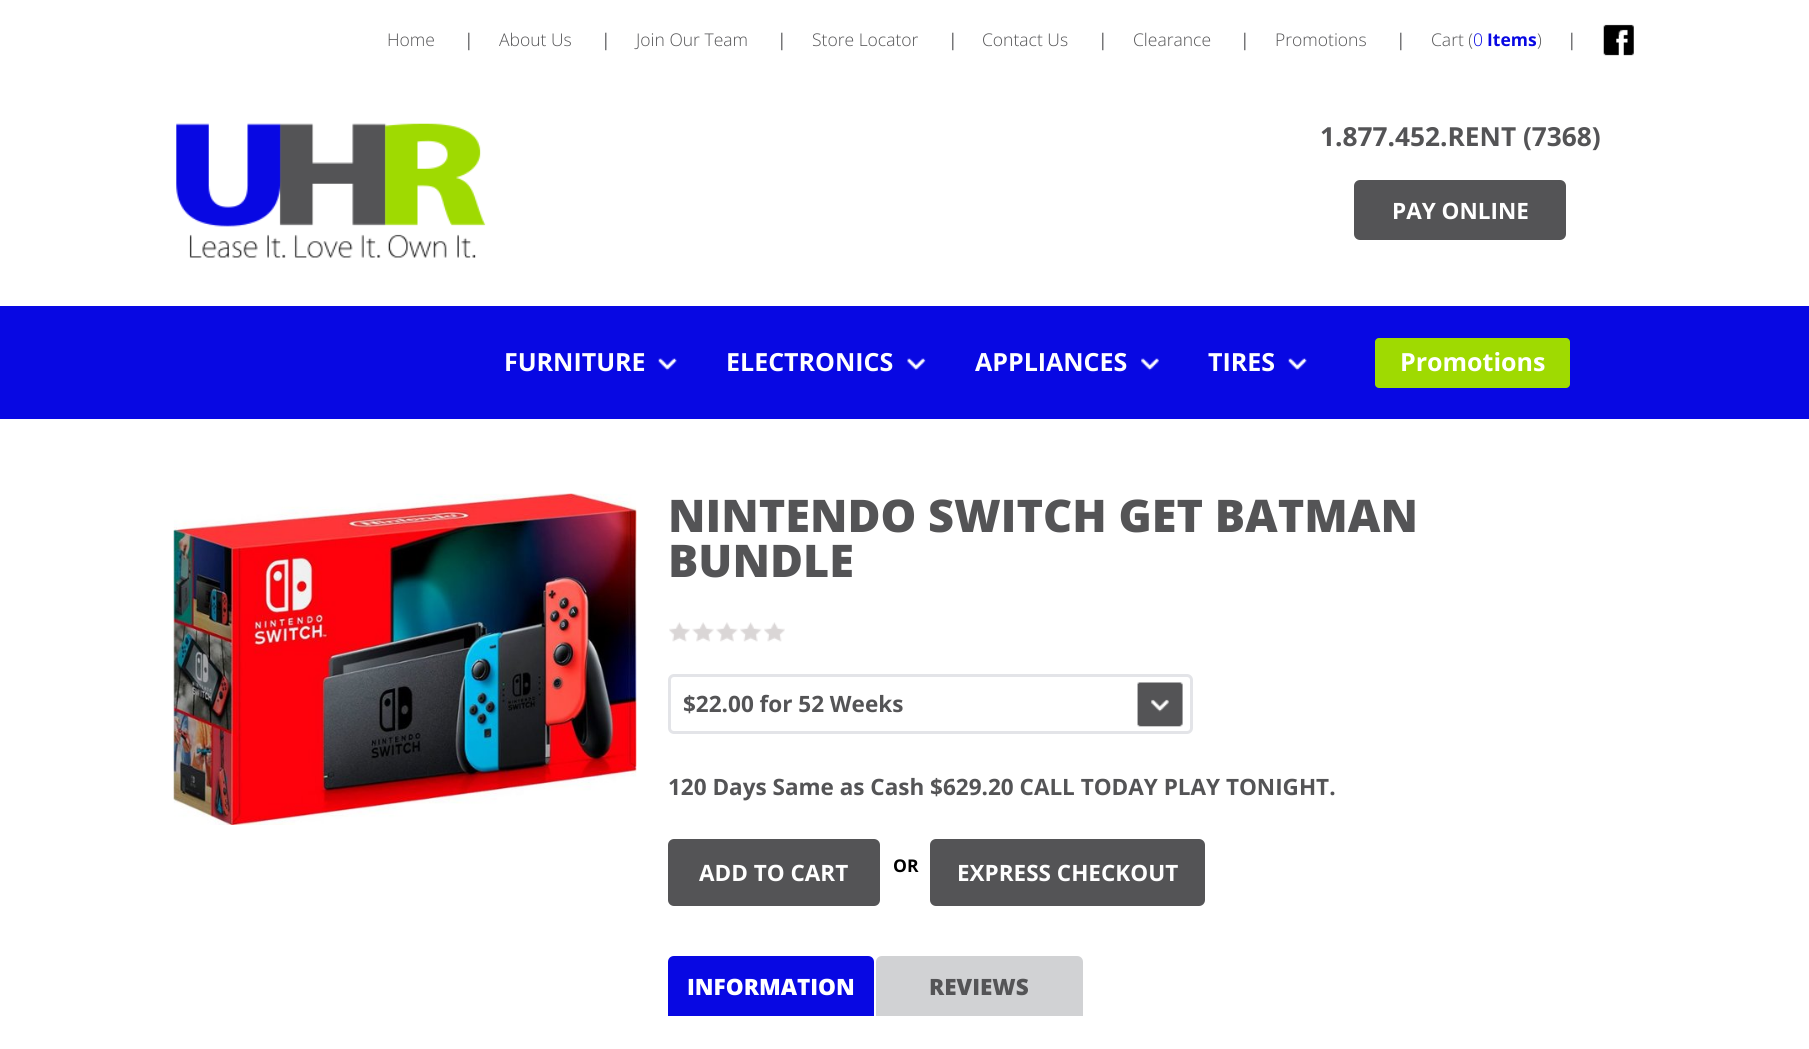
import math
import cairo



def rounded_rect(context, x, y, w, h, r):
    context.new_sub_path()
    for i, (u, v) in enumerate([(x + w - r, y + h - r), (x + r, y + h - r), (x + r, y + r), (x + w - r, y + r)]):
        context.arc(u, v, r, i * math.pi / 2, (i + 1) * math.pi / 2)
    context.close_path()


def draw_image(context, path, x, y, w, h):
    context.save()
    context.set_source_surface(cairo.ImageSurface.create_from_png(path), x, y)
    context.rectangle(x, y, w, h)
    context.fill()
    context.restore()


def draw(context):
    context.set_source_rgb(1, 1, 1)
    context.paint()
    draw_image(context, "images/1.png", 1603, 24, 31, 32)
    draw_image(context, "images/2.png", 176, 123, 310, 135)
    context.set_source_rgb(84 / 255, 84 / 255, 86 / 255)
    rounded_rect(context, 1354, 180, 212, 60, 6)
    context.fill()
    context.set_source_rgb(8 / 255, 8 / 255, 227 / 255)
    context.rectangle(0, 306, 1809, 113)
    context.fill()
    draw_image(context, "images/3.png", 658, 358, 19, 13)
    draw_image(context, "images/4.png", 907, 358, 19, 13)
    draw_image(context, "images/5.png", 1141, 358, 18, 13)
    draw_image(context, "images/3.png", 1288, 358, 19, 13)
    context.set_source_rgb(159 / 255, 218 / 255, 1 / 255)
    rounded_rect(context, 1375, 338, 195, 50, 4)
    context.fill()
    draw_image(context, "images/6.png", 173, 493, 464, 332)
    draw_image(context, "images/7.png", 669, 622, 21, 20)
    draw_image(context, "images/8.png", 692, 622, 22, 20)
    draw_image(context, "images/9.png", 716, 622, 22, 20)
    draw_image(context, "images/10.png", 740, 622, 22, 20)
    draw_image(context, "images/7.png", 764, 622, 21, 20)
    draw_image(context, "images/11.png", 1137, 682, 46, 45)
    rounded_rect(context, 669.5, 675.5, 522, 57, 4.5)
    context.set_source_rgb(227 / 255, 228 / 255, 232 / 255)
    context.set_line_width(3)
    context.stroke()
    context.set_source_rgb(84 / 255, 84 / 255, 86 / 255)
    rounded_rect(context, 668, 839, 212, 67, 6)
    context.fill()
    rounded_rect(context, 930, 839, 275, 67, 6)
    context.fill()
    context.set_source_rgb(8 / 255, 8 / 255, 227 / 255)
    context.new_path()
    context.move_to(674, 956)
    context.line_to(868, 956)
    context.curve_to(871.5, 956, 874, 958.5, 874, 962)
    context.line_to(874, 1016)
    context.line_to(668, 1016)
    context.line_to(668, 962)
    context.curve_to(668, 958.5, 670.5, 956, 674, 956)
    context.close_path()
    context.fill()
    context.set_source_rgb(209 / 255, 210 / 255, 212 / 255)
    context.new_path()
    context.move_to(882, 956)
    context.line_to(1077, 956)
    context.curve_to(1080.5, 956, 1083, 958.5, 1083, 962)
    context.line_to(1083, 1016)
    context.line_to(876, 1016)
    context.line_to(876, 962)
    context.curve_to(876, 958.5, 878.5, 956, 882, 956)
    context.close_path()
    context.fill()
    context.select_font_face("Open Sans Light")
    context.set_font_size(17.5)
    context.set_source_rgb(84 / 255, 84 / 255, 86 / 255)
    context.move_to(387, 46)
    context.show_text("Home")
    context.select_font_face("Open Sans")
    context.move_to(464, 46)
    context.show_text("|")
    context.select_font_face("Open Sans Light")
    context.move_to(499, 46)
    context.show_text("About Us")
    context.select_font_face("Open Sans")
    context.move_to(601, 46)
    context.show_text("|")
    context.select_font_face("Open Sans Light")
    context.move_to(636, 46)
    context.show_text("Join Our Team")
    context.select_font_face("Open Sans")
    context.move_to(777, 46)
    context.show_text("|")
    context.select_font_face("Open Sans Light")
    context.move_to(812, 46)
    context.show_text("Store Locator")
    context.select_font_face("Open Sans")
    context.move_to(948, 46)
    context.show_text("|")
    context.select_font_face("Open Sans Light")
    context.move_to(982, 46)
    context.show_text("Contact Us")
    context.select_font_face("Open Sans")
    context.move_to(1098, 46)
    context.show_text("|")
    context.select_font_face("Open Sans Light")
    context.move_to(1133, 46)
    context.show_text("Clearance")
    context.select_font_face("Open Sans")
    context.move_to(1240, 46)
    context.show_text("|")
    context.select_font_face("Open Sans Light")
    context.move_to(1275, 46)
    context.show_text("Promotions")
    context.select_font_face("Open Sans")
    context.move_to(1396, 46)
    context.show_text("|")
    context.select_font_face("Open Sans Light")
    context.move_to(1431, 46)
    context.show_text("Cart (")
    context.set_source_rgb(8 / 255, 8 / 255, 227 / 255)
    context.move_to(1473, 46)
    context.show_text("0")
    context.select_font_face("Open Sans", cairo.FontSlant.NORMAL, cairo.FontWeight.BOLD)
    context.move_to(1487, 46)
    context.show_text("Items")
    context.select_font_face("Open Sans Light")
    context.set_source_rgb(84 / 255, 84 / 255, 86 / 255)
    context.move_to(1537, 46)
    context.show_text(")")
    context.select_font_face("Open Sans")
    context.move_to(1567, 46)
    context.show_text("|")
    context.select_font_face("Open Sans", cairo.FontSlant.NORMAL, cairo.FontWeight.BOLD)
    context.set_font_size(26.25)
    context.move_to(1320, 146)
    context.show_text("1.877.452.RENT (7368)")
    context.set_font_size(22.5)
    context.set_source_rgb(1, 1, 1)
    context.move_to(1392, 219)
    context.show_text("PAY ONLINE")
    context.set_font_size(25)
    context.move_to(504, 371)
    context.show_text("FURNITURE")
    context.move_to(726, 371)
    context.show_text("ELECTRONICS")
    context.move_to(975, 371)
    context.show_text("APPLIANCES")
    context.move_to(1208, 371)
    context.show_text("TIRES")
    context.move_to(1400, 371)
    context.show_text("Promotions")
    context.select_font_face("Open Sans ExtraBold")
    context.set_font_size(45)
    context.set_source_rgb(84 / 255, 84 / 255, 86 / 255)
    context.move_to(668, 532)
    context.show_text("NINTENDO SWITCH GET BATMAN")
    context.move_to(668, 577)
    context.show_text("BUNDLE")
    context.select_font_face("Open Sans", cairo.FontSlant.NORMAL, cairo.FontWeight.BOLD)
    context.set_font_size(22.5)
    context.move_to(683, 712)
    context.show_text("$22.00 for 52 Weeks")
    context.move_to(668, 795)
    context.show_text("120 Days Same as Cash $629.20 CALL TODAY PLAY TONIGHT.")
    context.set_source_rgb(1, 1, 1)
    context.move_to(699, 881)
    context.show_text("ADD TO CART")
    context.set_font_size(17.5)
    context.set_source_rgb(0, 0, 0)
    context.move_to(893, 872)
    context.show_text("OR")
    context.set_font_size(22.5)
    context.set_source_rgb(1, 1, 1)
    context.move_to(957, 881)
    context.show_text("EXPRESS CHECKOUT")
    context.select_font_face("Open Sans ExtraBold")
    context.move_to(687, 995)
    context.show_text("INFORMATION")
    context.set_source_rgb(84 / 255, 84 / 255, 86 / 255)
    context.move_to(929, 995)
    context.show_text("REVIEWS")


surface = cairo.ImageSurface(cairo.Format.RGB24, 1809, 1049)
context = cairo.Context(surface)
options = cairo.FontOptions()
options.set_hint_metrics(cairo.HintMetrics.OFF)
options.set_hint_style(cairo.HintStyle.NONE)
context.set_font_options(options)
context.set_miter_limit(4)
draw(context)
surface.write_to_png("out.png")
